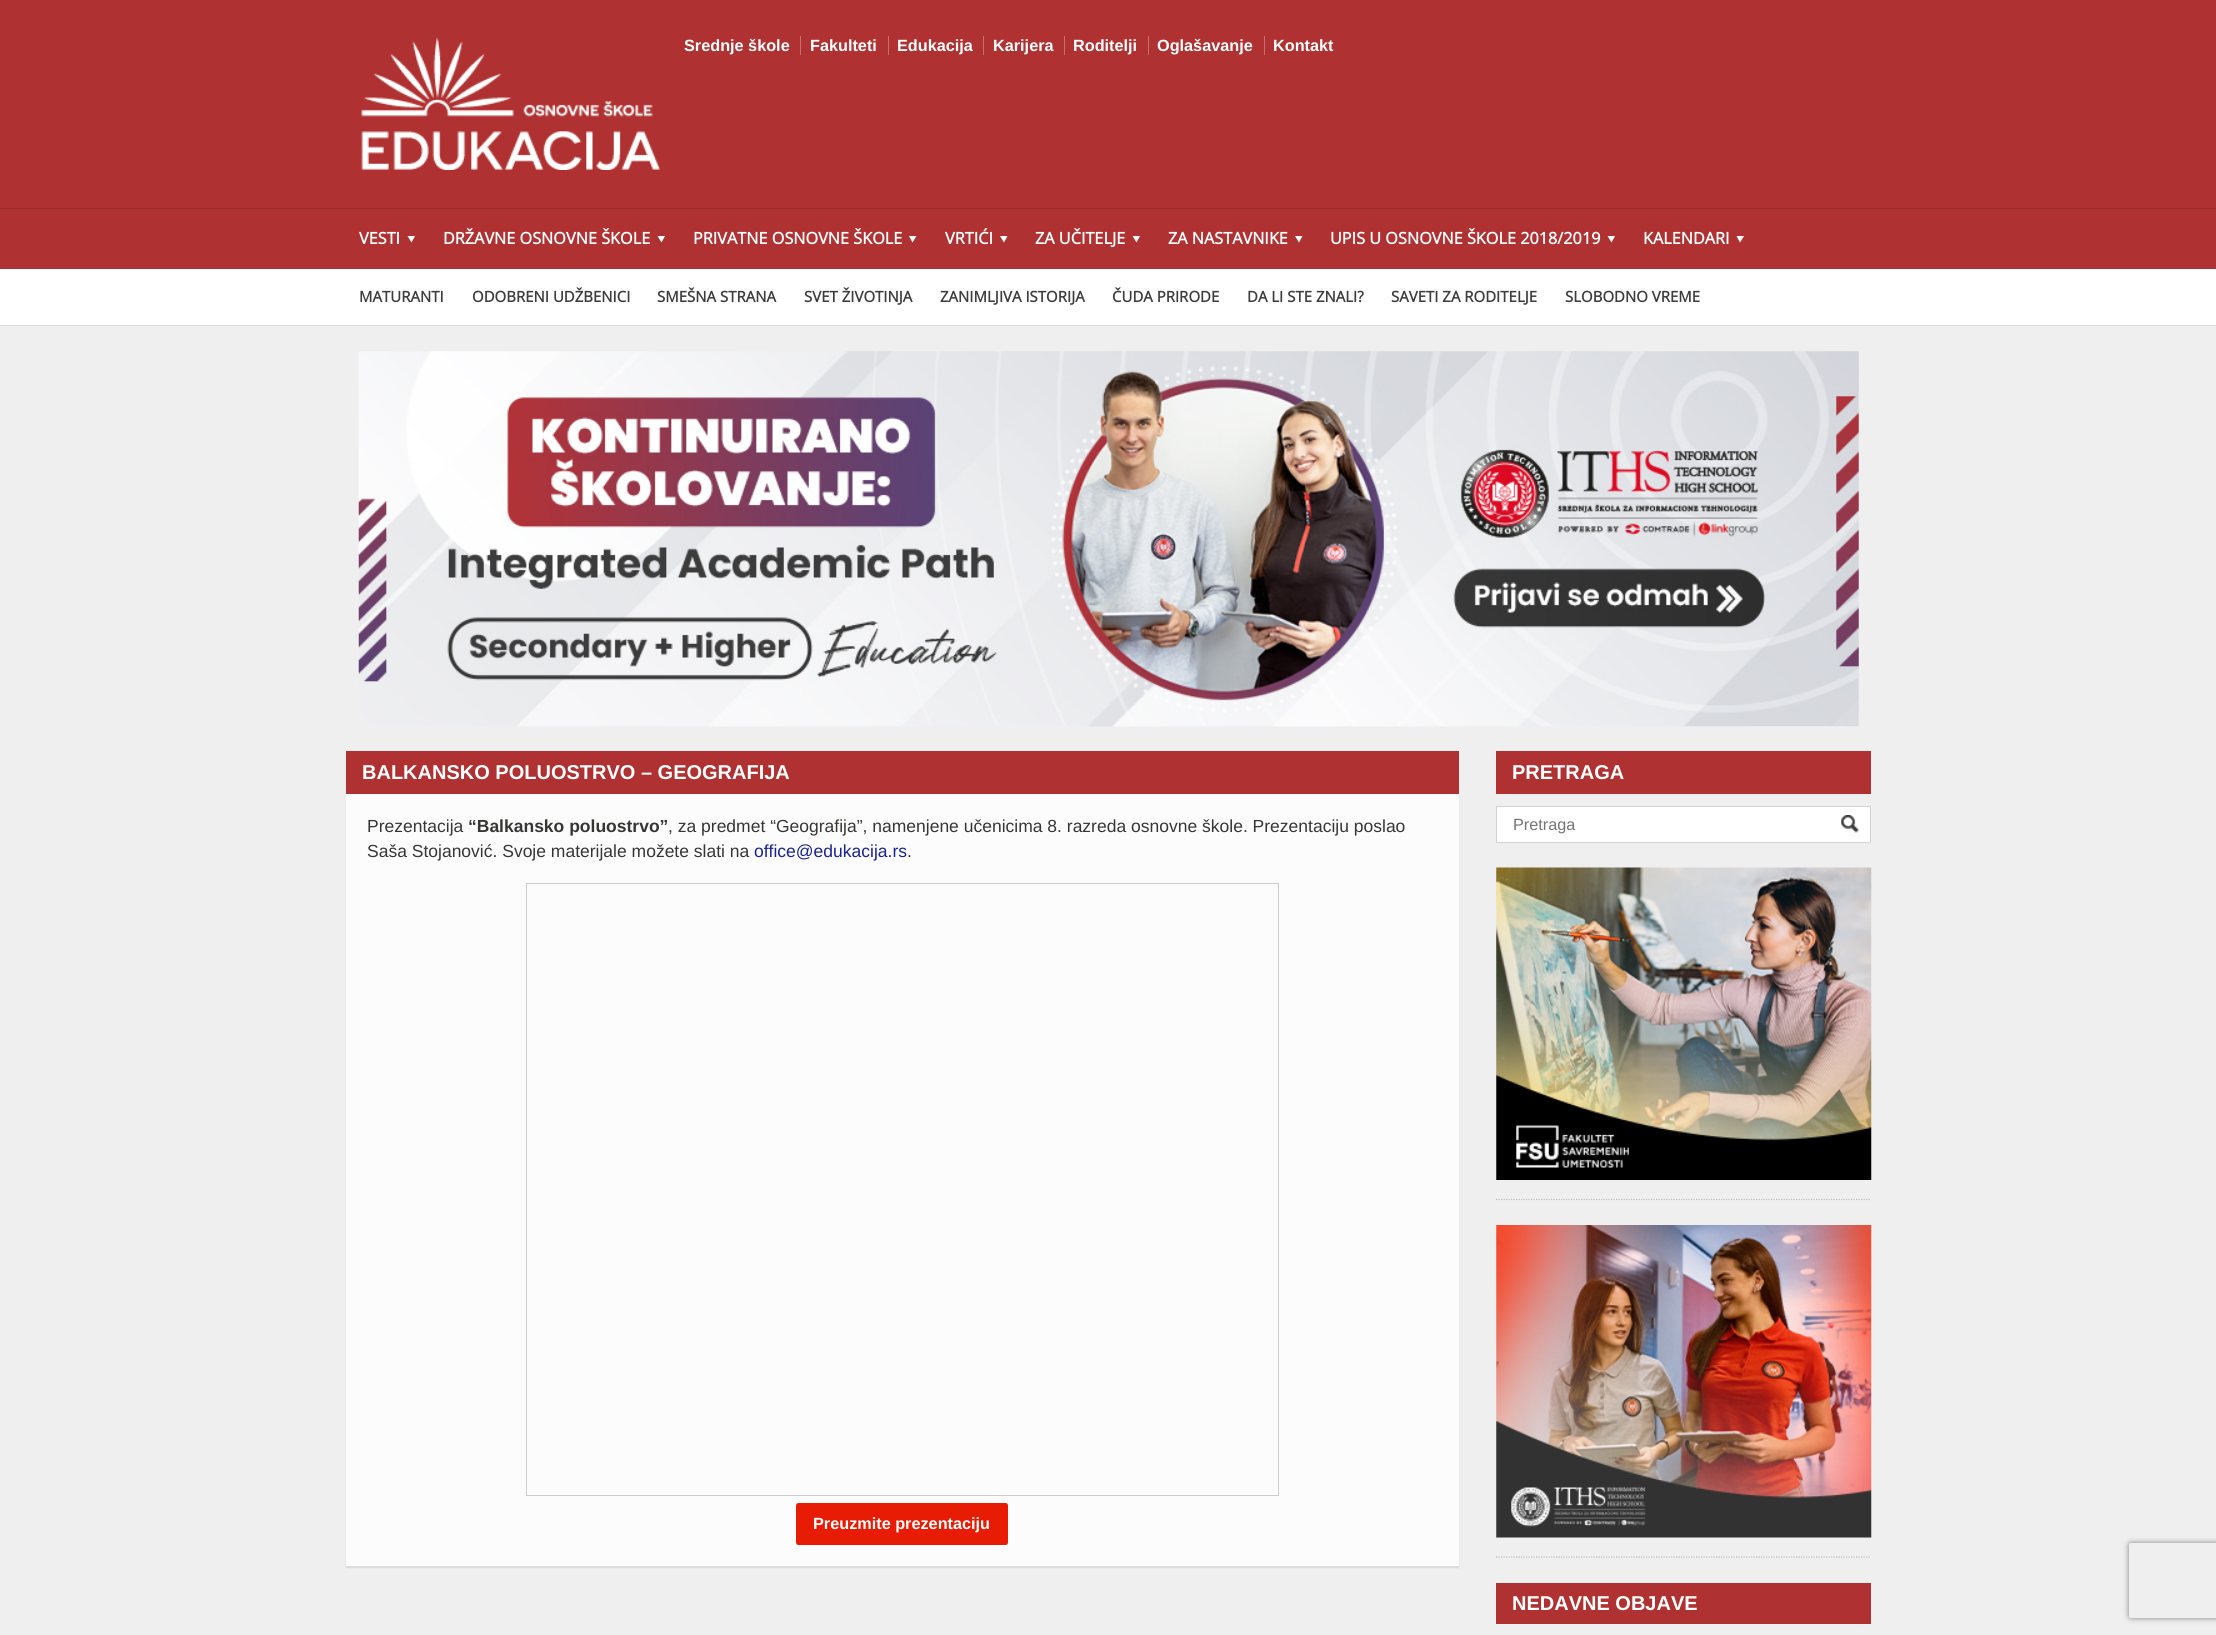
import math
import cairo



def rounded_rect(context, x, y, w, h, r):
    context.new_sub_path()
    for i, (u, v) in enumerate([(x + w - r, y + h - r), (x + r, y + h - r), (x + r, y + r), (x + w - r, y + r)]):
        context.arc(u, v, r, i * math.pi / 2, (i + 1) * math.pi / 2)
    context.close_path()


def draw_shadow(context, x, y, w, h, r, blur, alpha):
    context.push_group_with_content(cairo.Content.ALPHA)
    context.set_operator(cairo.Operator.SOURCE)
    for i in range(15, -16, -2):
        e = blur * i / 6
        if min(w, h) + 2 * e > 0:
            context.set_source_rgba(0, 0, 0, alpha * math.erfc((i - 1) / 8.5) / 2)
            rounded_rect(context, x - e, y - e, w + 2 * e, h + 2 * e, max(0, min(r + e + blur * .6, min(w, h) / 2 + e)))
            context.fill()
    context.mask(context.pop_group())


def draw_image(context, path, x, y, w, h):
    context.save()
    context.set_source_surface(cairo.ImageSurface.create_from_png(path), x, y)
    context.rectangle(x, y, w, h)
    context.fill()
    context.restore()


def draw(context):
    context.set_source_rgb(240 / 255, 239 / 255, 239 / 255)
    context.paint()
    context.set_source_rgb(176 / 255, 49 / 255, 49 / 255)
    context.rectangle(0, 0, 2216, 269)
    context.fill()
    draw_image(context, "images/1.png", 361, 37, 299, 133)
    context.set_source_rgb(200 / 255, 111 / 255, 111 / 255)
    context.rectangle(800, 36, 1, 19)
    context.fill()
    context.rectangle(888, 36, 1, 19)
    context.fill()
    context.rectangle(983, 36, 1, 19)
    context.fill()
    context.rectangle(1064, 36, 1, 19)
    context.fill()
    context.rectangle(1148, 36, 1, 19)
    context.fill()
    context.rectangle(1264, 36, 1, 19)
    context.fill()
    context.set_source_rgb(150 / 255, 42 / 255, 42 / 255)
    context.rectangle(0, 208, 2216, 1)
    context.fill()
    context.set_source_rgb(1, 1, 1)
    context.new_path()
    context.move_to(415, 236)
    context.line_to(411.5, 242.5)
    context.line_to(407.5, 236)
    context.close_path()
    context.fill()
    context.new_path()
    context.move_to(665, 236)
    context.line_to(661.5, 242.5)
    context.line_to(657.5, 236)
    context.close_path()
    context.fill()
    context.new_path()
    context.move_to(916.5, 236)
    context.line_to(912.5, 242.5)
    context.line_to(909, 236)
    context.close_path()
    context.fill()
    context.new_path()
    context.move_to(1007.5, 236)
    context.line_to(1004, 242.5)
    context.line_to(1000, 236)
    context.close_path()
    context.fill()
    context.new_path()
    context.move_to(1140, 236)
    context.line_to(1136.5, 242.5)
    context.line_to(1132.5, 236)
    context.close_path()
    context.fill()
    context.new_path()
    context.move_to(1302.5, 236)
    context.line_to(1299, 242.5)
    context.line_to(1295, 236)
    context.close_path()
    context.fill()
    context.new_path()
    context.move_to(1615, 236)
    context.line_to(1611.5, 242.5)
    context.line_to(1607.5, 236)
    context.close_path()
    context.fill()
    context.new_path()
    context.move_to(1744, 236)
    context.line_to(1740, 242.5)
    context.line_to(1736.5, 236)
    context.close_path()
    context.fill()
    context.rectangle(0, 269, 2216, 56)
    context.fill()
    context.set_source_rgb(217 / 255, 217 / 255, 217 / 255)
    context.rectangle(0, 325, 2216, 1)
    context.fill()
    draw_image(context, "images/2.png", 358, 351, 1501, 376)
    context.set_source_rgb(176 / 255, 49 / 255, 49 / 255)
    context.rectangle(346, 751, 1113, 43)
    context.fill()
    context.set_source_rgb(0, 0, 0)
    draw_shadow(context, 346, 795, 1113, 773, 0, 0.5, 0.08)
    context.set_source_rgb(252 / 255, 252 / 255, 252 / 255)
    context.rectangle(346, 794, 1113, 772)
    context.fill()
    context.rectangle(526.5, 883.5, 752, 612)
    context.set_source_rgb(204 / 255, 204 / 255, 204 / 255)
    context.set_line_width(1)
    context.stroke()
    context.set_source_rgb(232 / 255, 27 / 255, 5 / 255)
    rounded_rect(context, 796, 1503, 212, 42, 2.5)
    context.fill()
    context.set_source_rgb(176 / 255, 49 / 255, 49 / 255)
    context.rectangle(1496, 751, 375, 43)
    context.fill()
    context.set_source_rgb(1, 1, 1)
    context.rectangle(1496.5, 806.5, 374, 36)
    context.fill_preserve()
    context.set_source_rgb(211 / 255, 211 / 255, 211 / 255)
    context.stroke()
    draw_image(context, "images/3.png", 1841, 815, 18, 18)
    context.new_path()
    context.move_to(1496, 1199.5)
    context.line_to(1871, 1199.5)
    context.set_source_rgb(192 / 255, 191 / 255, 191 / 255)
    context.set_line_width(1.2)
    context.set_dash([1.25, 1.25])
    context.stroke()
    draw_image(context, "images/4.png", 1496, 867, 376, 313)
    context.new_path()
    context.move_to(1496, 1557)
    context.line_to(1871, 1557)
    context.stroke()
    draw_image(context, "images/5.png", 1496, 1225, 376, 313)
    context.set_source_rgb(176 / 255, 49 / 255, 49 / 255)
    context.rectangle(1496, 1583, 375, 41)
    context.fill()
    context.save()
    context.set_fill_rule(cairo.FillRule.EVEN_ODD)
    context.new_path()
    context.move_to(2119, 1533)
    context.line_to(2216, 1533)
    context.line_to(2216, 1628)
    context.line_to(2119, 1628)
    context.close_path()
    context.move_to(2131.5, 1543)
    context.line_to(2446.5, 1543)
    context.curve_to(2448, 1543, 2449, 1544, 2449, 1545.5)
    context.line_to(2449, 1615.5)
    context.curve_to(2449, 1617, 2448, 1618, 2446.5, 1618)
    context.line_to(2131.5, 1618)
    context.curve_to(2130, 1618, 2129, 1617, 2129, 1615.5)
    context.line_to(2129, 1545.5)
    context.curve_to(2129, 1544, 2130, 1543, 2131.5, 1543)
    context.close_path()
    context.clip()
    context.set_source_rgb(128 / 255, 128 / 255, 128 / 255)
    draw_shadow(context, 2129, 1543, 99, 75, 2.5, 3, 1)
    context.restore()
    context.select_font_face("Liberation Sans", cairo.FontSlant.NORMAL, cairo.FontWeight.BOLD)
    context.set_font_size(16.25)
    context.set_source_rgb(1, 1, 1)
    context.move_to(684, 51)
    context.show_text("Srednje škole")
    context.move_to(810, 51)
    context.show_text("Fakulteti")
    context.move_to(897, 51)
    context.show_text("Edukacija")
    context.move_to(993, 51)
    context.show_text("Karijera")
    context.move_to(1073, 51)
    context.show_text("Roditelji")
    context.move_to(1157, 51)
    context.show_text("Oglašavanje")
    context.move_to(1273, 51)
    context.show_text("Kontakt")
    context.select_font_face("Open Sans", cairo.FontSlant.NORMAL, cairo.FontWeight.BOLD)
    context.move_to(359, 244)
    context.show_text("VESTI")
    context.move_to(443, 244)
    context.show_text("DRŽAVNE OSNOVNE ŠKOLE")
    context.move_to(693, 244)
    context.show_text("PRIVATNE OSNOVNE ŠKOLE")
    context.move_to(945, 244)
    context.show_text("VRTIĆI")
    context.move_to(1035, 244)
    context.show_text("ZA UČITELJE")
    context.move_to(1168, 244)
    context.show_text("ZA NASTAVNIKE")
    context.move_to(1330, 244)
    context.show_text("UPIS U OSNOVNE ŠKOLE 2018/2019")
    context.move_to(1643, 244)
    context.show_text("KALENDARI")
    context.set_font_size(15)
    context.set_source_rgb(61 / 255, 61 / 255, 61 / 255)
    context.move_to(359, 302)
    context.show_text("MATURANTI")
    context.move_to(472, 302)
    context.show_text("ODOBRENI UDŽBENICI")
    context.move_to(657, 302)
    context.show_text("SMEŠNA STRANA")
    context.move_to(804, 302)
    context.show_text("SVET ŽIVOTINJA")
    context.move_to(940, 302)
    context.show_text("ZANIMLJIVA ISTORIJA")
    context.move_to(1112, 302)
    context.show_text("ČUDA PRIRODE")
    context.move_to(1247, 302)
    context.show_text("DA LI STE ZNALI?")
    context.move_to(1391, 302)
    context.show_text("SAVETI ZA RODITELJE")
    context.move_to(1565, 302)
    context.show_text("SLOBODNO VREME")
    context.select_font_face("Liberation Sans", cairo.FontSlant.NORMAL, cairo.FontWeight.BOLD)
    context.set_font_size(20)
    context.set_source_rgb(1, 1, 1)
    context.move_to(362, 779)
    context.show_text("BALKANSKO POLUOSTRVO – GEOGRAFIJA")
    context.select_font_face("Liberation Sans")
    context.set_font_size(17.5)
    context.set_source_rgb(54 / 255, 54 / 255, 53 / 255)
    context.move_to(367, 832)
    context.show_text("Prezentacija")
    context.select_font_face("Liberation Sans", cairo.FontSlant.NORMAL, cairo.FontWeight.BOLD)
    context.move_to(468, 832)
    context.show_text("“Balkansko poluostrvo”")
    context.select_font_face("Liberation Sans")
    context.move_to(668, 832)
    context.show_text(", za predmet “Geografija”, namenjene učenicima 8. razreda osnovne škole. Prezentaciju poslao")
    context.move_to(367, 857)
    context.show_text("Saša Stojanović. Svoje materijale možete slati na")
    context.set_source_rgb(24 / 255, 34 / 255, 148 / 255)
    context.move_to(754, 857)
    context.show_text("office@edukacija.rs")
    context.set_source_rgb(54 / 255, 54 / 255, 53 / 255)
    context.move_to(907, 857)
    context.show_text(".")
    context.select_font_face("Liberation Sans", cairo.FontSlant.NORMAL, cairo.FontWeight.BOLD)
    context.set_font_size(16.25)
    context.set_source_rgb(1, 1, 1)
    context.move_to(813, 1529)
    context.show_text("Preuzmite prezentaciju")
    context.set_font_size(20)
    context.move_to(1512, 779)
    context.show_text("PRETRAGA")
    context.select_font_face("Liberation Sans")
    context.set_font_size(16.25)
    context.set_source_rgb(117 / 255, 117 / 255, 117 / 255)
    context.move_to(1513, 830)
    context.show_text("Pretraga")
    context.select_font_face("Liberation Sans", cairo.FontSlant.NORMAL, cairo.FontWeight.BOLD)
    context.set_font_size(20)
    context.set_source_rgb(1, 1, 1)
    context.move_to(1512, 1610)
    context.show_text("NEDAVNE OBJAVE")


surface = cairo.ImageSurface(cairo.Format.RGB24, 2216, 1635)
context = cairo.Context(surface)
options = cairo.FontOptions()
options.set_hint_metrics(cairo.HintMetrics.OFF)
options.set_hint_style(cairo.HintStyle.NONE)
context.set_font_options(options)
context.set_miter_limit(4)
draw(context)
surface.write_to_png("out.png")
